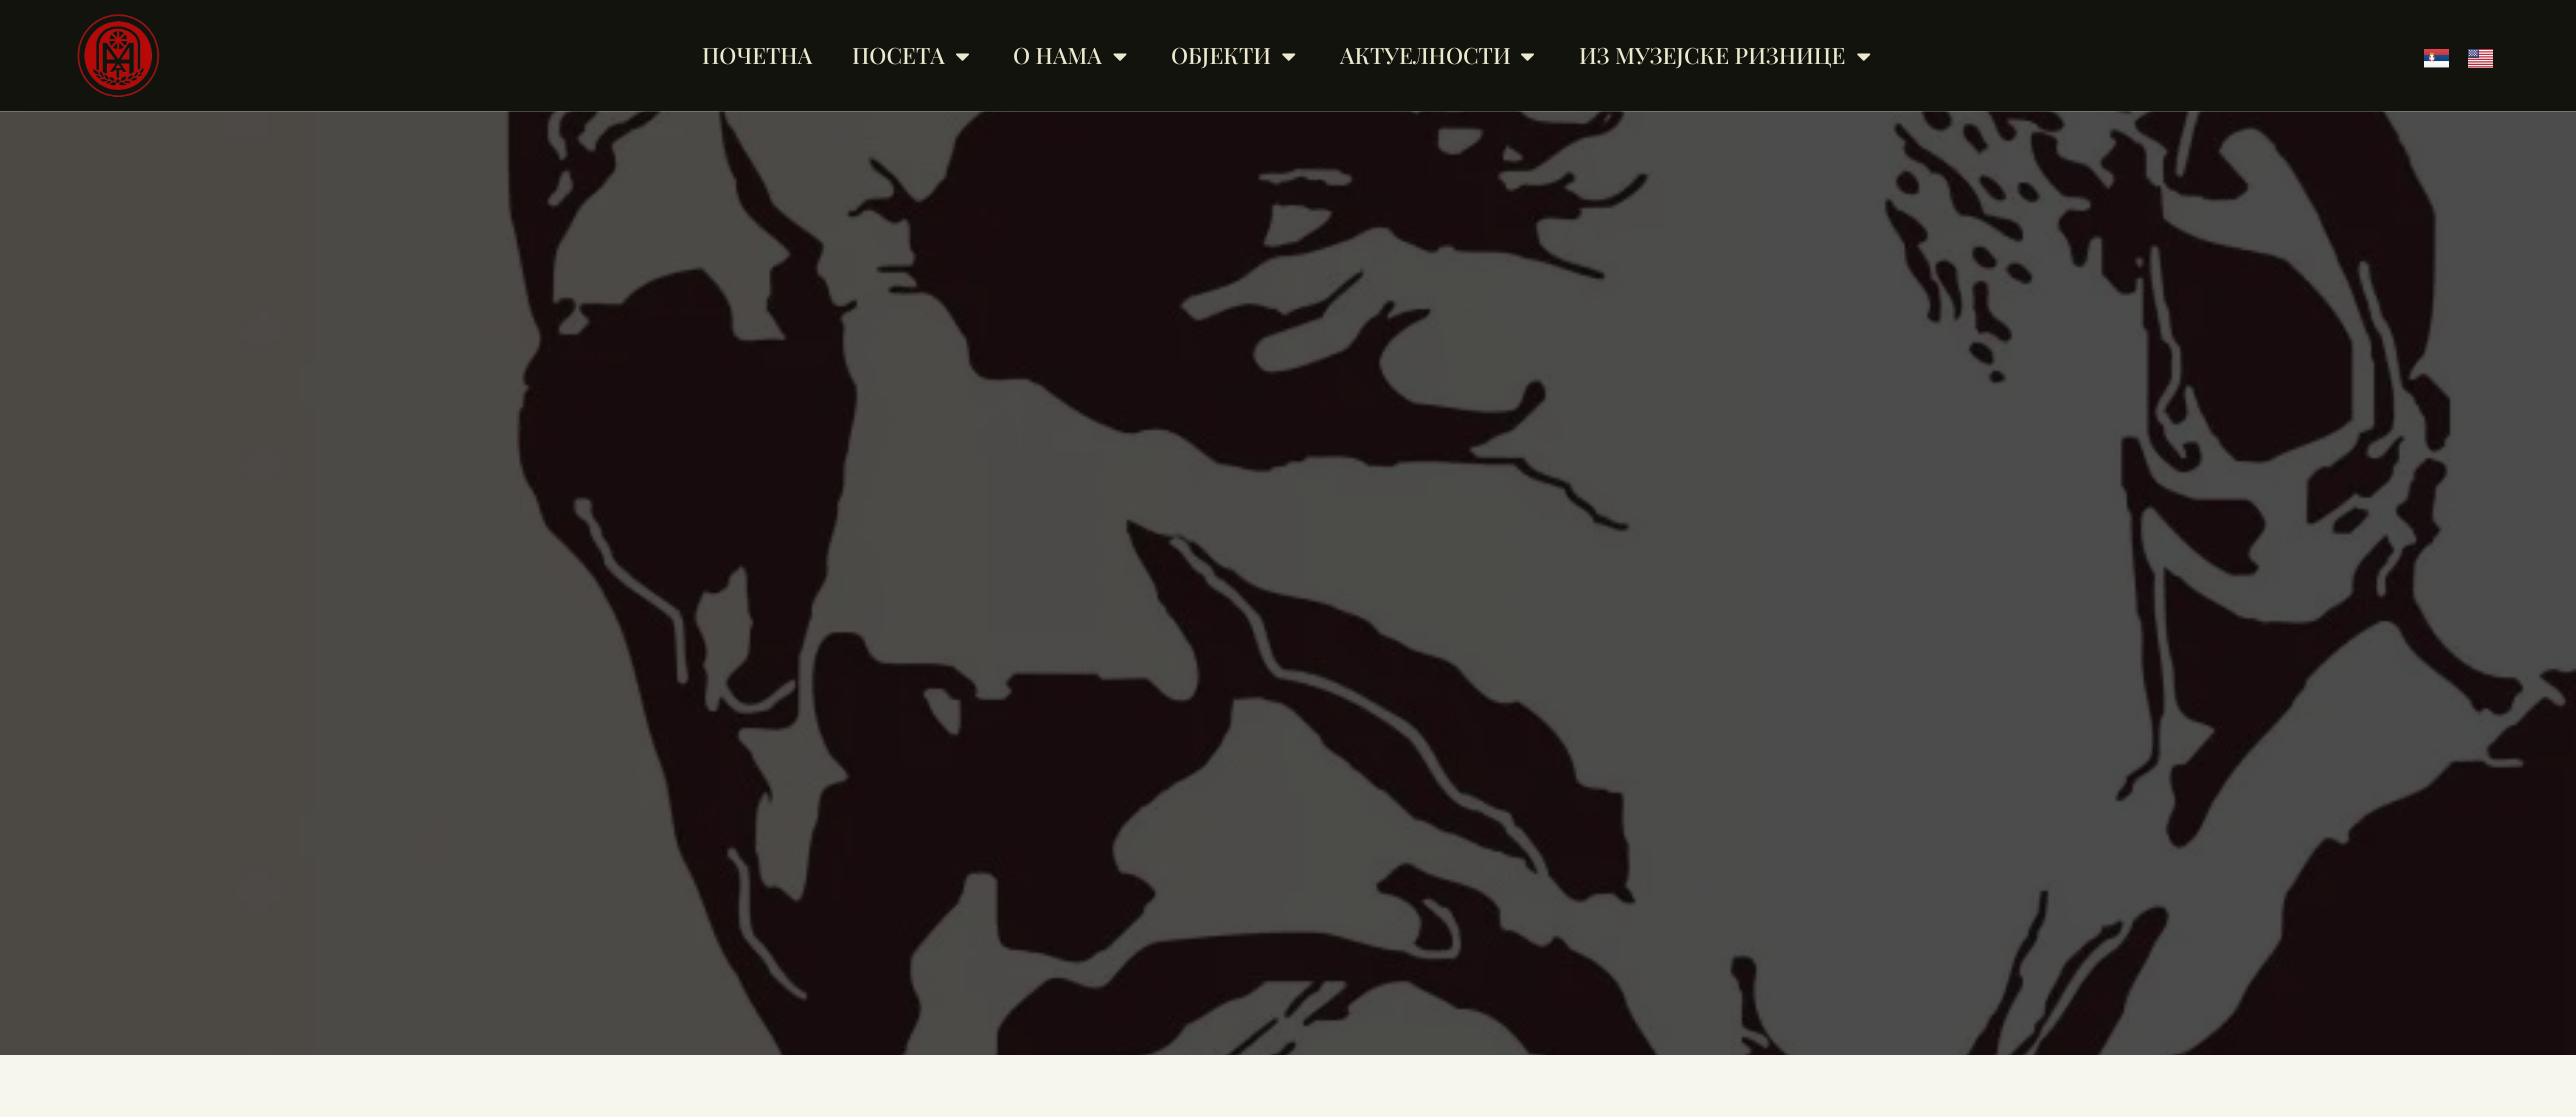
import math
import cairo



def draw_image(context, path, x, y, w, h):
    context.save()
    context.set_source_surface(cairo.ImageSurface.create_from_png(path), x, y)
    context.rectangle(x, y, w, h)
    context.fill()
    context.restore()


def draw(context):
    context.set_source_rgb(247 / 255, 246 / 255, 236 / 255)
    context.paint()
    context.set_source_rgb(19 / 255, 19 / 255, 13 / 255)
    context.rectangle(0, 0, 2576, 111)
    context.fill()
    draw_image(context, "images/1.png", 77, 14, 83, 83)
    draw_image(context, "images/2.png", 956, 53, 13, 8)
    draw_image(context, "images/3.png", 1113, 53, 14, 8)
    draw_image(context, "images/4.png", 1282, 53, 14, 8)
    draw_image(context, "images/2.png", 1521, 53, 13, 8)
    draw_image(context, "images/4.png", 1857, 53, 14, 8)
    draw_image(context, "images/5.png", 2424, 49, 25, 19)
    draw_image(context, "images/6.png", 2468, 49, 25, 19)
    draw_image(context, "images/7.png", 0, 111, 2576, 944)
    context.select_font_face("Playfair Display Medium")
    context.set_font_size(22.5)
    context.set_source_rgb(235 / 255, 233 / 255, 207 / 255)
    context.move_to(702, 64)
    context.show_text("ПОЧЕТНА")
    context.move_to(852, 64)
    context.show_text("ПОСЕТА")
    context.move_to(1013, 64)
    context.show_text("О НАМА")
    context.move_to(1171, 64)
    context.show_text("ОБЈЕКТИ")
    context.move_to(1340, 64)
    context.show_text("АКТУЕЛНОСТИ")
    context.move_to(1579, 64)
    context.show_text("ИЗ МУЗЕЈСКЕ РИЗНИЦЕ")


surface = cairo.ImageSurface(cairo.Format.RGB24, 2576, 1117)
context = cairo.Context(surface)
options = cairo.FontOptions()
options.set_hint_metrics(cairo.HintMetrics.OFF)
options.set_hint_style(cairo.HintStyle.NONE)
context.set_font_options(options)
context.set_miter_limit(4)
draw(context)
surface.write_to_png("out.png")
